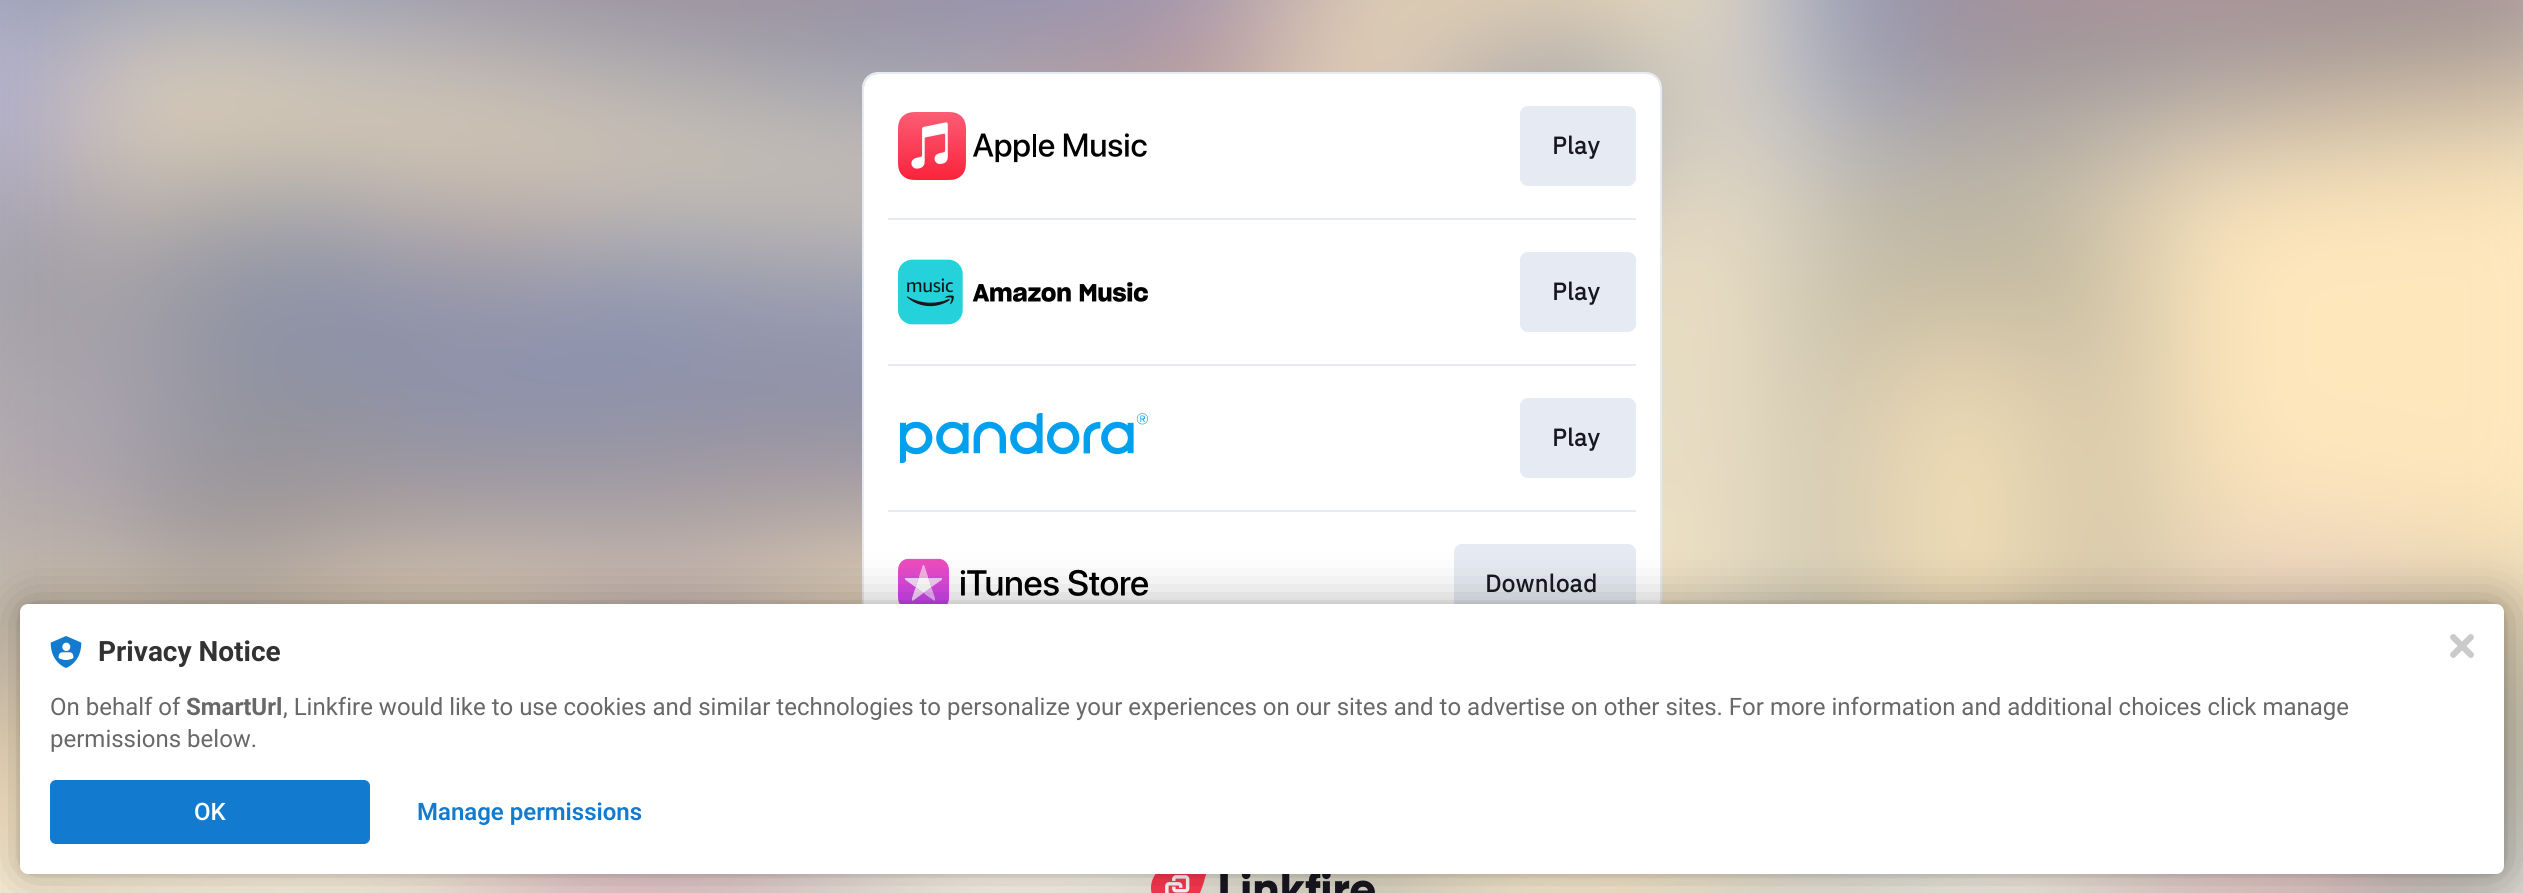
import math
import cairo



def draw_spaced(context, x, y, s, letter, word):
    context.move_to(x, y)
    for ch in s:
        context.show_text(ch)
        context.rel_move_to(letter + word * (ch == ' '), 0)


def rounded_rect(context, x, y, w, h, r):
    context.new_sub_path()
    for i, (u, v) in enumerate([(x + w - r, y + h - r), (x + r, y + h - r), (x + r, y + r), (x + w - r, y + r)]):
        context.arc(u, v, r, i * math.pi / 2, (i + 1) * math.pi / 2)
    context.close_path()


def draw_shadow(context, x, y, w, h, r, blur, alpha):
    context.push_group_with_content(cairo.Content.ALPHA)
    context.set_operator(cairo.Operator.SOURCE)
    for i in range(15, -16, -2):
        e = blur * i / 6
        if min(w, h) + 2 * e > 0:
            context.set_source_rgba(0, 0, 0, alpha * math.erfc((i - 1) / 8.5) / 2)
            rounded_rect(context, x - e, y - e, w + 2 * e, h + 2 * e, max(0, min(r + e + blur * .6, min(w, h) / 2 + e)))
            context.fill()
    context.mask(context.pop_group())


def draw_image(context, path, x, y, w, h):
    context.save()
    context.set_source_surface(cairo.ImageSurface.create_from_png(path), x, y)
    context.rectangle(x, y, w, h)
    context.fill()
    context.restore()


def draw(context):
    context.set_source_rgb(1, 1, 1)
    context.paint()
    draw_image(context, "images/1.png", 0, 0, 2523, 893)
    rounded_rect(context, 863, 73, 798, 584, 15)
    context.set_source_rgb(230 / 255, 234 / 255, 242 / 255)
    context.stroke()
    context.set_source_rgb(1, 1, 1)
    rounded_rect(context, 864, 74, 796, 582, 14)
    context.fill()
    draw_image(context, "images/2.png", 898, 112, 249, 68)
    context.set_source_rgb(230 / 255, 234 / 255, 242 / 255)
    rounded_rect(context, 1520, 106, 116, 80, 8)
    context.fill()
    context.rectangle(888, 218, 748, 2)
    context.fill()
    draw_image(context, "images/3.png", 898, 259, 250, 66)
    rounded_rect(context, 1520, 252, 116, 80, 8)
    context.fill()
    context.rectangle(888, 364, 748, 2)
    context.fill()
    draw_image(context, "images/4.png", 900, 413, 248, 50)
    rounded_rect(context, 1520, 398, 116, 80, 8)
    context.fill()
    context.rectangle(888, 510, 748, 2)
    context.fill()
    draw_image(context, "images/5.png", 898, 558, 250, 46)
    rounded_rect(context, 1454, 544, 182, 80, 8)
    context.fill()
    draw_image(context, "images/6.png", 1151, 874, 224, 19)
    context.set_source_rgb(0, 0, 0)
    draw_shadow(context, 20, 604, 2484, 270, 8, 4, 0.12)
    draw_shadow(context, 20, 604, 2484, 270, 8, 24, 0.3)
    context.set_source_rgb(1, 1, 1)
    rounded_rect(context, 20, 604, 2484, 270, 8)
    context.fill()
    draw_image(context, "images/7.png", 50, 636, 32, 32)
    context.set_source_rgb(19 / 255, 123 / 255, 207 / 255)
    rounded_rect(context, 50, 780, 320, 64, 6)
    context.fill()
    draw_image(context, "images/8.png", 2450, 634, 24, 24)
    context.select_font_face("IBM Plex Sans", cairo.FontSlant.NORMAL, cairo.FontWeight.BOLD)
    context.set_font_size(24)
    context.set_source_rgb(24 / 255, 23 / 255, 33 / 255)
    draw_spaced(context, 1552, 154, "Play", 0.5, 0)
    draw_spaced(context, 1552, 300, "Play", 0.5, 0)
    draw_spaced(context, 1552, 446, "Play", 0.5, 0)
    draw_spaced(context, 1485, 592, "Download", 0.5, 0)
    context.select_font_face("Roboto", cairo.FontSlant.NORMAL, cairo.FontWeight.BOLD)
    context.set_font_size(28)
    context.set_source_rgb(50 / 255, 50 / 255, 50 / 255)
    context.move_to(98, 661)
    context.show_text("Privacy Notice")
    context.select_font_face("Roboto")
    context.set_font_size(24)
    context.set_source_rgb(104 / 255, 104 / 255, 104 / 255)
    context.move_to(50, 715)
    context.show_text("On behalf of")
    context.select_font_face("Roboto", cairo.FontSlant.NORMAL, cairo.FontWeight.BOLD)
    context.move_to(186, 715)
    context.show_text("SmartUrl")
    context.select_font_face("Roboto")
    context.move_to(283, 715)
    context.show_text(", Linkfire would like to use cookies and similar technologies to personalize your experiences on our sites and to advertise on other sites. For more information and additional choices click manage")
    context.move_to(50, 747)
    context.show_text("permissions below.")
    context.select_font_face("Roboto Medium")
    context.set_source_rgb(1, 1, 1)
    context.move_to(194, 820)
    context.show_text("OK")
    context.select_font_face("Roboto SemiBold")
    context.set_source_rgb(19 / 255, 123 / 255, 207 / 255)
    context.move_to(417, 820)
    context.show_text("Manage permissions")


surface = cairo.ImageSurface(cairo.Format.RGB24, 2523, 893)
context = cairo.Context(surface)
options = cairo.FontOptions()
options.set_hint_metrics(cairo.HintMetrics.OFF)
options.set_hint_style(cairo.HintStyle.NONE)
context.set_font_options(options)
context.set_miter_limit(4)
draw(context)
surface.write_to_png("out.png")
